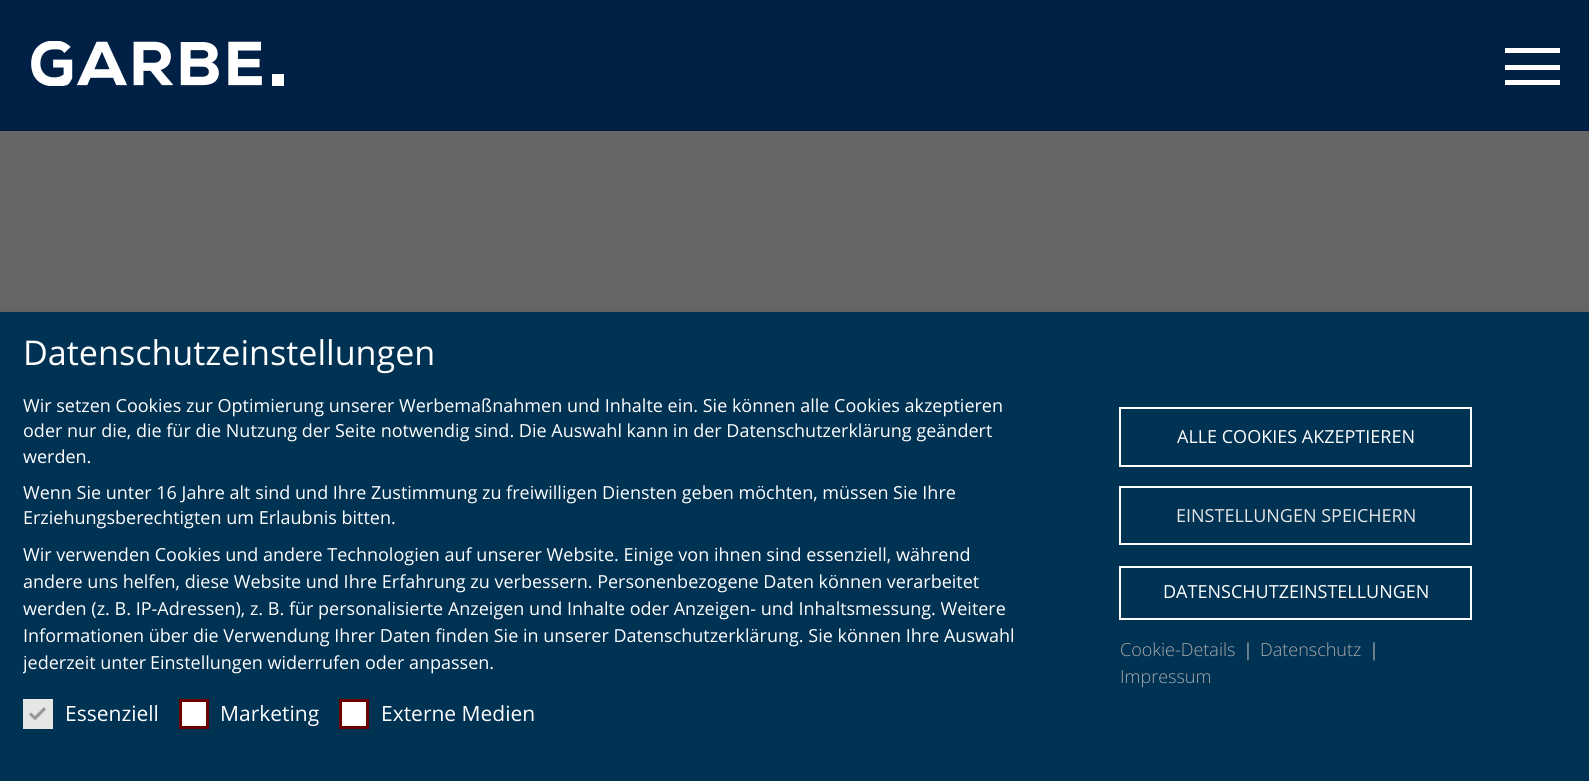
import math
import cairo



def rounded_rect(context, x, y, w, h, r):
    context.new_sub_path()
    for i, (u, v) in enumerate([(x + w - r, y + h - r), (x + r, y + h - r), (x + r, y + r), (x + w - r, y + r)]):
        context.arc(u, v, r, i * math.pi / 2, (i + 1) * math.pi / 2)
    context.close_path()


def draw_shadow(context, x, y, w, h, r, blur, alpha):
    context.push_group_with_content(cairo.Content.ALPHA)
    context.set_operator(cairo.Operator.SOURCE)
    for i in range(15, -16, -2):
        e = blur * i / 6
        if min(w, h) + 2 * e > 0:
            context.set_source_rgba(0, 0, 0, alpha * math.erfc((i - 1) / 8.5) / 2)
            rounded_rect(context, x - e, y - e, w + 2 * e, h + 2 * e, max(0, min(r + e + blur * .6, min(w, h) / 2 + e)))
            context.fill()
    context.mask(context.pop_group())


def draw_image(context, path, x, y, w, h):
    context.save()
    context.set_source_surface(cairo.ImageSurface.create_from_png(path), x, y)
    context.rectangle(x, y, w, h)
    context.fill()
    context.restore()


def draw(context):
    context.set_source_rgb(102 / 255, 102 / 255, 102 / 255)
    context.paint()
    context.set_source_rgb(0, 32 / 255, 70 / 255)
    context.rectangle(0, 0, 1589, 129)
    context.fill()
    context.set_source_rgb(0, 29 / 255, 63 / 255)
    context.rectangle(0, 129, 1589, 2)
    context.fill()
    draw_image(context, "images/1.png", 31, 41, 253, 45)
    context.set_source_rgb(1, 1, 1)
    context.rectangle(1505, 65, 55, 5)
    context.fill()
    context.rectangle(1505, 48, 55, 5)
    context.fill()
    context.rectangle(1505, 80, 55, 5)
    context.fill()
    context.set_source_rgb(0, 0, 0)
    draw_shadow(context, 0, 318, 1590, 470, 0, 6, 0.2)
    context.set_source_rgb(0, 50 / 255, 84 / 255)
    context.rectangle(0, 312, 1589, 469)
    context.fill()
    context.set_source_rgb(230 / 255, 230 / 255, 230 / 255)
    context.rectangle(23, 699, 30, 30)
    context.fill()
    context.set_source_rgb(153 / 255, 153 / 255, 153 / 255)
    context.new_path()
    context.move_to(44, 707)
    context.line_to(46, 709.5)
    context.line_to(35.5, 720)
    context.line_to(33.5, 717.5)
    context.close_path()
    context.fill()
    context.new_path()
    context.move_to(31, 712.5)
    context.line_to(36.5, 717.5)
    context.line_to(34.5, 720)
    context.line_to(29, 714.5)
    context.close_path()
    context.fill()
    context.set_source_rgb(1, 1, 1)
    context.rectangle(180.5, 700.5, 27, 27)
    context.fill_preserve()
    context.set_source_rgb(107 / 255, 0, 0)
    context.set_line_width(3)
    context.stroke()
    context.set_source_rgb(1, 1, 1)
    context.rectangle(340.5, 700.5, 27, 27)
    context.fill_preserve()
    context.set_source_rgb(107 / 255, 0, 0)
    context.stroke()
    context.rectangle(1120, 408, 351, 58)
    context.set_source_rgb(1, 1, 1)
    context.set_line_width(2)
    context.stroke()
    context.rectangle(1120, 487, 351, 57)
    context.stroke()
    context.rectangle(1120, 567, 351, 52)
    context.stroke()
    context.select_font_face("Open Sans")
    context.set_font_size(34.1)
    context.move_to(23, 365)
    context.show_text("Datenschutzeinstellungen")
    context.set_font_size(18)
    context.move_to(23, 412)
    context.show_text("Wir setzen Cookies zur Optimierung unserer Werbemaßnahmen und Inhalte ein. Sie können alle Cookies akzeptieren")
    context.move_to(23, 437)
    context.show_text("oder nur die, die für die Nutzung der Seite notwendig sind. Die Auswahl kann in der Datenschutzerklärung geändert")
    context.move_to(23, 463)
    context.show_text("werden.")
    context.move_to(23, 499)
    context.show_text("Wenn Sie unter 16 Jahre alt sind und Ihre Zustimmung zu freiwilligen Diensten geben möchten, müssen Sie Ihre")
    context.move_to(23, 524)
    context.show_text("Erziehungsberechtigten um Erlaubnis bitten.")
    context.move_to(23, 561)
    context.show_text("Wir verwenden Cookies und andere Technologien auf unserer Website. Einige von ihnen sind essenziell, während")
    context.move_to(23, 588)
    context.show_text("andere uns helfen, diese Website und Ihre Erfahrung zu verbessern. Personenbezogene Daten können verarbeitet")
    context.move_to(23, 615)
    context.show_text("werden (z. B. IP-Adressen), z. B. für personalisierte Anzeigen und Inhalte oder Anzeigen- und Inhaltsmessung. Weitere")
    context.move_to(23, 642)
    context.show_text("Informationen über die Verwendung Ihrer Daten finden Sie in unserer Datenschutzerklärung. Sie können Ihre Auswahl")
    context.save()
    context.rectangle(23, 392, 999, 285)
    context.clip()
    context.move_to(23, 669)
    context.show_text("jederzeit unter")
    context.restore()
    context.move_to(150, 669)
    context.show_text("Einstellungen widerrufen oder anpassen.")
    context.set_font_size(21)
    context.move_to(65, 721)
    context.show_text("Essenziell")
    context.move_to(220, 721)
    context.show_text("Marketing")
    context.move_to(381, 721)
    context.show_text("Externe Medien")
    context.set_font_size(18)
    context.move_to(1177, 443)
    context.show_text("ALLE COOKIES AKZEPTIEREN")
    context.set_source_rgb(230 / 255, 230 / 255, 230 / 255)
    context.move_to(1176, 522)
    context.show_text("EINSTELLUNGEN SPEICHERN")
    context.set_source_rgb(1, 1, 1)
    context.move_to(1163, 598)
    context.show_text("DATENSCHUTZEINSTELLUNGEN")
    context.select_font_face("Open Sans Light")
    context.set_source_rgb(170 / 255, 170 / 255, 170 / 255)
    context.move_to(1120, 656)
    context.show_text("Cookie-Details")
    context.select_font_face("Open Sans")
    context.move_to(1243, 656)
    context.show_text("|")
    context.select_font_face("Open Sans Light")
    context.move_to(1260, 656)
    context.show_text("Datenschutz")
    context.select_font_face("Open Sans")
    context.move_to(1369, 656)
    context.show_text("|")
    context.select_font_face("Open Sans Light")
    context.move_to(1120, 683)
    context.show_text("Impressum")


surface = cairo.ImageSurface(cairo.Format.RGB24, 1589, 781)
context = cairo.Context(surface)
options = cairo.FontOptions()
options.set_hint_metrics(cairo.HintMetrics.OFF)
options.set_hint_style(cairo.HintStyle.NONE)
context.set_font_options(options)
context.set_miter_limit(4)
draw(context)
surface.write_to_png("out.png")
